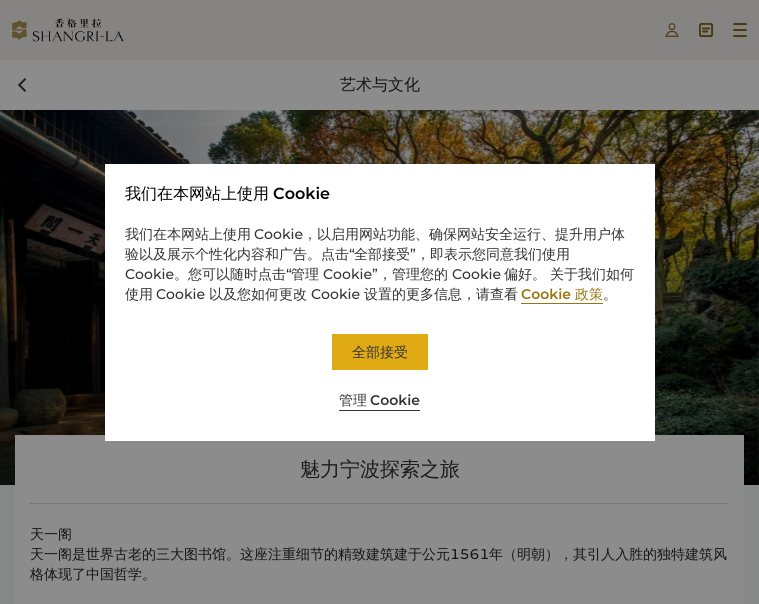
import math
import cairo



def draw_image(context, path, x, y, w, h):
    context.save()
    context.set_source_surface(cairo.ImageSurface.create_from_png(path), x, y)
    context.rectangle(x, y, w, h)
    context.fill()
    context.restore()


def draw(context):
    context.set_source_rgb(140 / 255, 140 / 255, 140 / 255)
    context.paint()
    context.set_source_rgb(134 / 255, 132 / 255, 131 / 255)
    context.rectangle(0, 0, 759, 60)
    context.fill()
    draw_image(context, "images/1.png", 12, 18, 112, 24)
    draw_image(context, "images/2.png", 665, 23, 14, 14)
    draw_image(context, "images/3.png", 699, 23, 15, 15)
    draw_image(context, "images/4.png", 733, 23, 14, 15)
    draw_image(context, "images/5.png", 18, 78, 9, 14)
    context.set_source_rgb(134 / 255, 135 / 255, 135 / 255)
    context.rectangle(0, 110, 759, 494)
    context.fill()
    draw_image(context, "images/6.png", 0, 110, 759, 375)
    gradient = cairo.LinearGradient(380, 110, 380, 485)
    gradient.add_color_stop_rgba(0, 0, 0, 0, 0)
    gradient.add_color_stop_rgba(1, 0, 0, 0, 0.5)
    context.set_source(gradient)
    context.rectangle(0, 126, 759, 359)
    context.fill()
    context.set_source_rgb(140 / 255, 140 / 255, 140 / 255)
    context.rectangle(15, 435, 729, 169)
    context.fill()
    context.set_source_rgb(119 / 255, 119 / 255, 119 / 255)
    context.rectangle(30, 503, 699, 1)
    context.fill()
    context.set_source_rgb(1, 1, 1)
    context.rectangle(105, 164, 550, 277)
    context.fill()
    context.set_source_rgb(154 / 255, 117 / 255, 15 / 255)
    context.rectangle(521, 303, 82, 1)
    context.fill()
    context.set_source_rgb(224 / 255, 170 / 255, 20 / 255)
    context.rectangle(332, 334, 96, 36)
    context.fill()
    context.set_source_rgb(51 / 255, 51 / 255, 51 / 255)
    context.rectangle(339, 410, 81, 1)
    context.fill()
    context.select_font_face("WenQuanYi Zen Hei Medium")
    context.set_font_size(16)
    context.set_source_rgb(21 / 255, 21 / 255, 21 / 255)
    context.move_to(340, 90)
    context.show_text("艺术与文化")
    context.set_font_size(20)
    context.set_source_rgb(28 / 255, 28 / 255, 28 / 255)
    context.move_to(300, 476)
    context.show_text("魅力宁波探索之旅")
    context.set_font_size(14)
    context.set_source_rgb(21 / 255, 21 / 255, 21 / 255)
    context.move_to(30, 539)
    context.show_text("天一阁")
    context.move_to(30, 559)
    context.show_text("天一阁是世界古老的三大图书馆。这座注重细节的精致建筑建于公元")
    context.select_font_face("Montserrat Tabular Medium")
    context.move_to(450, 559)
    context.show_text("1561")
    context.select_font_face("WenQuanYi Zen Hei Medium")
    context.move_to(489, 559)
    context.show_text("年（明朝），其引人入胜的独特建筑风")
    context.move_to(30, 579)
    context.show_text("格体现了中国哲学。")
    context.set_font_size(16)
    context.set_source_rgb(0, 0, 0)
    context.move_to(125, 199)
    context.show_text("我们在本网站上使用")
    context.select_font_face("Montserrat SemiBold")
    context.move_to(273, 199)
    context.show_text("Cookie")
    context.select_font_face("WenQuanYi Zen Hei Medium")
    context.set_font_size(14)
    context.set_source_rgb(51 / 255, 51 / 255, 51 / 255)
    context.move_to(125, 239)
    context.show_text("我们在本网站上使用")
    context.select_font_face("Montserrat Medium")
    context.move_to(254, 239)
    context.show_text("Cookie")
    context.select_font_face("WenQuanYi Zen Hei Medium")
    context.move_to(303, 239)
    context.show_text("，以启用网站功能、确保网站安全运行、提升用户体")
    context.move_to(125, 259)
    context.show_text("验以及展示个性化内容和广告。点击")
    context.select_font_face("Montserrat Medium")
    context.move_to(349, 259)
    context.show_text("“")
    context.select_font_face("WenQuanYi Zen Hei Medium")
    context.move_to(354, 259)
    context.show_text("全部接受")
    context.select_font_face("Montserrat Medium")
    context.move_to(410, 259)
    context.show_text("”")
    context.select_font_face("WenQuanYi Zen Hei Medium")
    context.move_to(416, 259)
    context.show_text("，即表示您同意我们使用")
    context.select_font_face("Montserrat Medium")
    context.move_to(125, 279)
    context.show_text("Cookie")
    context.select_font_face("WenQuanYi Zen Hei Medium")
    context.move_to(174, 279)
    context.show_text("。您可以随时点击")
    context.select_font_face("Montserrat Medium")
    context.move_to(286, 279)
    context.show_text("“")
    context.select_font_face("WenQuanYi Zen Hei Medium")
    context.move_to(291, 279)
    context.show_text("管理")
    context.select_font_face("Montserrat Medium")
    context.move_to(323, 279)
    context.show_text("Cookie”")
    context.select_font_face("WenQuanYi Zen Hei Medium")
    context.move_to(378, 279)
    context.show_text("，管理您的")
    context.select_font_face("Montserrat Medium")
    context.move_to(452, 279)
    context.show_text("Cookie")
    context.select_font_face("WenQuanYi Zen Hei Medium")
    context.move_to(504, 279)
    context.show_text("偏好。")
    context.move_to(550, 279)
    context.show_text("关于我们如何")
    context.move_to(125, 299)
    context.show_text("使用")
    context.select_font_face("Montserrat Medium")
    context.move_to(156, 299)
    context.show_text("Cookie")
    context.select_font_face("WenQuanYi Zen Hei Medium")
    context.move_to(209, 299)
    context.show_text("以及您如何更改")
    context.select_font_face("Montserrat Medium")
    context.move_to(311, 299)
    context.show_text("Cookie")
    context.select_font_face("WenQuanYi Zen Hei Medium")
    context.move_to(364, 299)
    context.show_text("设置的更多信息，请查看")
    context.select_font_face("Montserrat SemiBold")
    context.set_source_rgb(154 / 255, 117 / 255, 15 / 255)
    context.move_to(521, 299)
    context.show_text("Cookie")
    context.select_font_face("WenQuanYi Zen Hei Medium")
    context.move_to(575, 299)
    context.show_text("政策")
    context.set_source_rgb(51 / 255, 51 / 255, 51 / 255)
    context.move_to(603, 299)
    context.show_text("。")
    context.move_to(352, 357)
    context.show_text("全部接受")
    context.move_to(339, 405)
    context.show_text("管理")
    context.select_font_face("Montserrat SemiBold")
    context.move_to(370, 405)
    context.show_text("Cookie")


surface = cairo.ImageSurface(cairo.Format.RGB24, 759, 604)
context = cairo.Context(surface)
options = cairo.FontOptions()
options.set_hint_metrics(cairo.HintMetrics.OFF)
options.set_hint_style(cairo.HintStyle.NONE)
context.set_font_options(options)
context.set_miter_limit(4)
draw(context)
surface.write_to_png("out.png")
